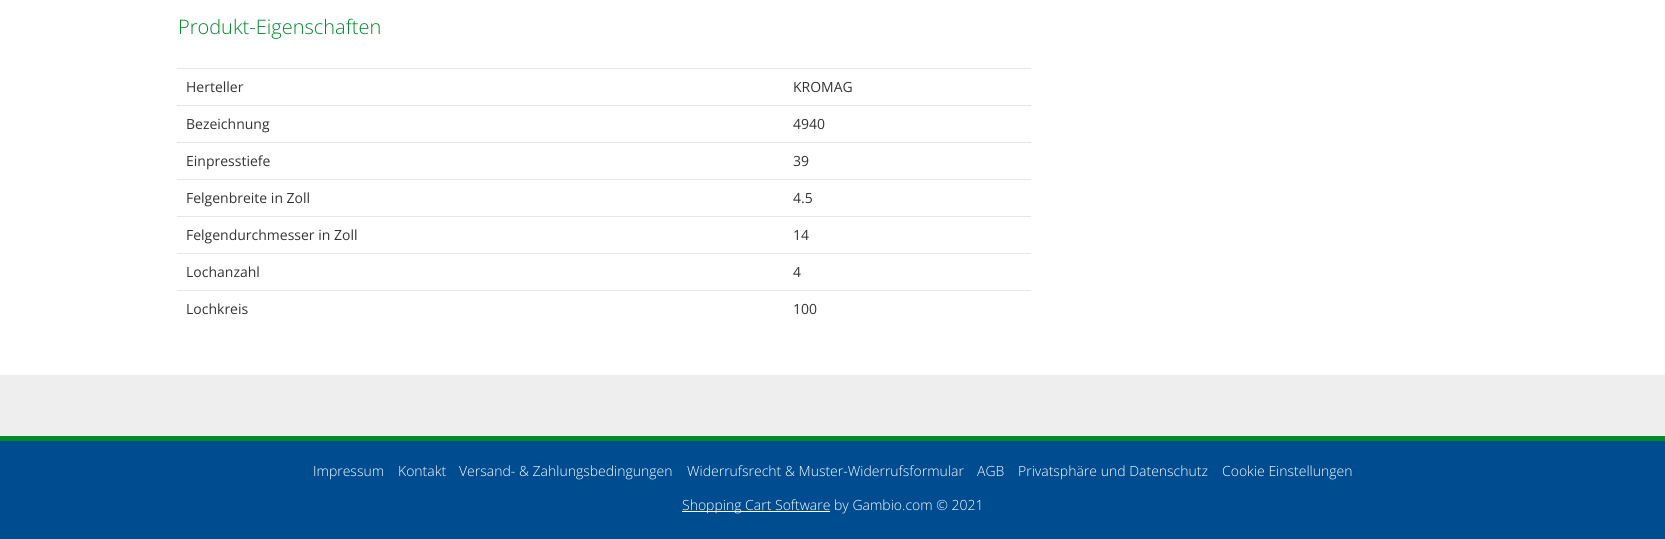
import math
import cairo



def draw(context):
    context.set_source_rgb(1, 1, 1)
    context.paint()
    context.set_source_rgb(231 / 255, 231 / 255, 231 / 255)
    context.rectangle(177, 68, 854, 1)
    context.fill()
    context.rectangle(177, 105, 854, 1)
    context.fill()
    context.rectangle(177, 142, 854, 1)
    context.fill()
    context.rectangle(177, 179, 854, 1)
    context.fill()
    context.rectangle(177, 216, 854, 1)
    context.fill()
    context.rectangle(177, 253, 854, 1)
    context.fill()
    context.rectangle(177, 290, 854, 1)
    context.fill()
    context.set_source_rgb(238 / 255, 238 / 255, 238 / 255)
    context.rectangle(0, 375, 1665, 61)
    context.fill()
    context.set_source_rgb(0, 76 / 255, 145 / 255)
    context.rectangle(0, 441, 1665, 98)
    context.fill()
    context.set_source_rgb(0, 139 / 255, 41 / 255)
    context.rectangle(0, 436, 1665, 5)
    context.fill()
    context.set_source_rgb(1, 1, 1)
    context.rectangle(682, 511, 148, 1)
    context.fill()
    context.select_font_face("Open Sans Light")
    context.set_font_size(20)
    context.set_source_rgb(0, 139 / 255, 41 / 255)
    context.move_to(178, 34)
    context.show_text("Produkt-Eigenschaften")
    context.select_font_face("Open Sans")
    context.set_font_size(14)
    context.set_source_rgb(51 / 255, 51 / 255, 51 / 255)
    context.move_to(186, 92)
    context.show_text("Herteller")
    context.move_to(793, 92)
    context.show_text("KROMAG")
    context.move_to(186, 129)
    context.show_text("Bezeichnung")
    context.move_to(793, 129)
    context.show_text("4940")
    context.move_to(186, 166)
    context.show_text("Einpresstiefe")
    context.move_to(793, 166)
    context.show_text("39")
    context.move_to(186, 203)
    context.show_text("Felgenbreite in Zoll")
    context.move_to(793, 203)
    context.show_text("4.5")
    context.move_to(186, 240)
    context.show_text("Felgendurchmesser in Zoll")
    context.move_to(793, 240)
    context.show_text("14")
    context.move_to(186, 277)
    context.show_text("Lochanzahl")
    context.move_to(793, 277)
    context.show_text("4")
    context.move_to(186, 314)
    context.show_text("Lochkreis")
    context.move_to(793, 314)
    context.show_text("100")
    context.select_font_face("Open Sans Light")
    context.set_source_rgb(1, 1, 1)
    context.move_to(313, 476)
    context.show_text("Impressum")
    context.move_to(398, 476)
    context.show_text("Kontakt")
    context.move_to(459, 476)
    context.show_text("Versand- & Zahlungsbedingungen")
    context.move_to(687, 476)
    context.show_text("Widerrufsrecht & Muster-Widerrufsformular")
    context.move_to(977, 476)
    context.show_text("AGB")
    context.move_to(1018, 476)
    context.show_text("Privatsphäre und Datenschutz")
    context.move_to(1222, 476)
    context.show_text("Cookie Einstellungen")
    context.move_to(682, 510)
    context.show_text("Shopping Cart Software by Gambio.com © 2021")


surface = cairo.ImageSurface(cairo.Format.RGB24, 1665, 539)
context = cairo.Context(surface)
options = cairo.FontOptions()
options.set_hint_metrics(cairo.HintMetrics.OFF)
options.set_hint_style(cairo.HintStyle.NONE)
context.set_font_options(options)
context.set_miter_limit(4)
draw(context)
surface.write_to_png("out.png")
